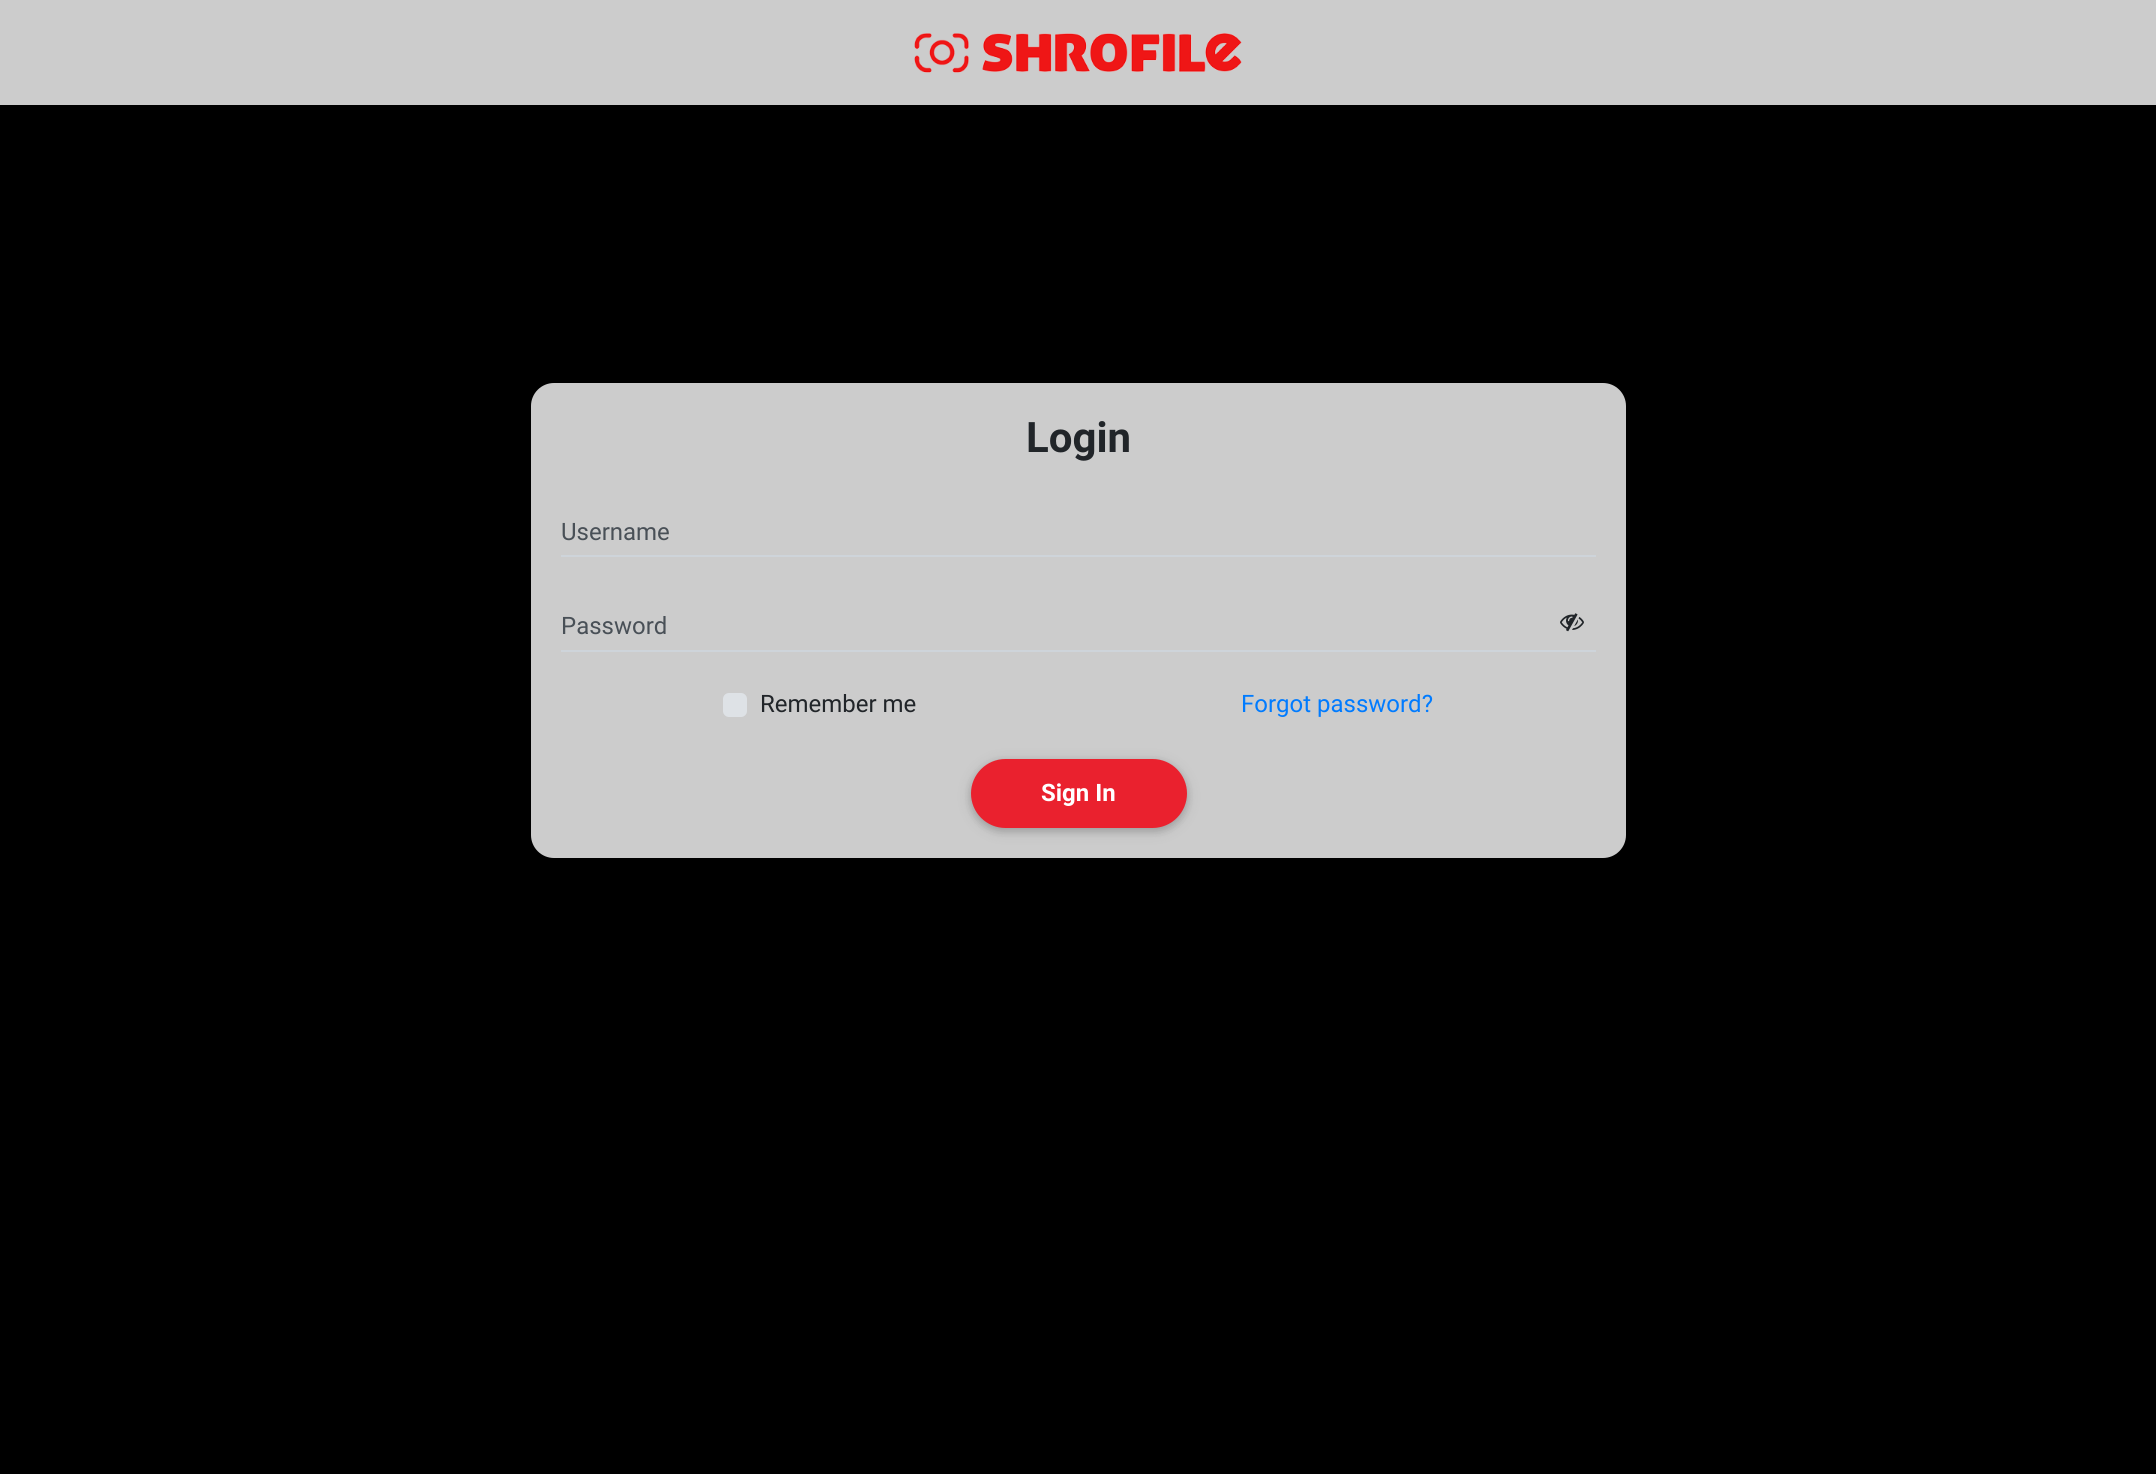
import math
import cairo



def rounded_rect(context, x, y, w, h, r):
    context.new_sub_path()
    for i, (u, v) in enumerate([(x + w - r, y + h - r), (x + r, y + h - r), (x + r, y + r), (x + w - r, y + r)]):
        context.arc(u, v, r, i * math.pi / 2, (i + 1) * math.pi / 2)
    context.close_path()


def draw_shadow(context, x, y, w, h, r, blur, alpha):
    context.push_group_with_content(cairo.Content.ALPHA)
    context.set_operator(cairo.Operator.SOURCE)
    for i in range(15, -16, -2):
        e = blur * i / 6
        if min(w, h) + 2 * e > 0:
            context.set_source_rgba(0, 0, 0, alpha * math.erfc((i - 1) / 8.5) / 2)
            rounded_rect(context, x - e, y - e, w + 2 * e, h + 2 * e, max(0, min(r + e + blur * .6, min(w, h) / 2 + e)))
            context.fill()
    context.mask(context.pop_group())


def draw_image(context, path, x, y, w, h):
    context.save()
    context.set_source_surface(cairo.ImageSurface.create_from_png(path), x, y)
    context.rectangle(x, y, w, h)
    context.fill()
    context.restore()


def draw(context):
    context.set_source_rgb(0, 0, 0)
    context.paint()
    context.set_source_rgb(204 / 255, 204 / 255, 204 / 255)
    context.rectangle(0, 0, 2156, 105)
    context.fill()
    draw_image(context, "images/1.png", 912, 33, 330, 40)
    rounded_rect(context, 531, 383, 1095, 475, 23)
    context.fill()
    context.set_source_rgb(206 / 255, 212 / 255, 218 / 255)
    context.rectangle(561, 555, 1035, 2)
    context.fill()
    draw_image(context, "images/2.png", 1560, 613, 24, 19)
    context.rectangle(561, 650, 1035, 2)
    context.fill()
    context.set_source_rgb(222 / 255, 226 / 255, 230 / 255)
    rounded_rect(context, 723, 693, 24, 24, 6)
    context.fill()
    context.set_source_rgb(0, 0, 0)
    draw_shadow(context, 971, 762, 216, 69, 34.5, 7.5, 0.12)
    draw_shadow(context, 971, 762, 216, 69, 34.5, 4, 0.16)
    context.set_source_rgb(234 / 255, 33 / 255, 46 / 255)
    rounded_rect(context, 972, 760, 214, 67, 33.5)
    context.fill_preserve()
    context.stroke()
    context.select_font_face("Roboto", cairo.FontSlant.NORMAL, cairo.FontWeight.BOLD)
    context.set_font_size(42)
    context.set_source_rgb(33 / 255, 37 / 255, 41 / 255)
    context.move_to(1026, 452)
    context.show_text("Login")
    context.select_font_face("Roboto")
    context.set_font_size(24)
    context.set_source_rgb(73 / 255, 80 / 255, 87 / 255)
    context.move_to(561, 540)
    context.show_text("Username")
    context.move_to(561, 634)
    context.show_text("Password")
    context.set_source_rgb(33 / 255, 37 / 255, 41 / 255)
    context.move_to(760, 712)
    context.show_text("Remember me")
    context.set_source_rgb(0, 123 / 255, 1)
    context.move_to(1241, 712)
    context.show_text("Forgot password?")
    context.select_font_face("Roboto", cairo.FontSlant.NORMAL, cairo.FontWeight.BOLD)
    context.set_source_rgb(1, 1, 1)
    context.move_to(1041, 801)
    context.show_text("Sign In")


surface = cairo.ImageSurface(cairo.Format.RGB24, 2156, 1474)
context = cairo.Context(surface)
options = cairo.FontOptions()
options.set_hint_metrics(cairo.HintMetrics.OFF)
options.set_hint_style(cairo.HintStyle.NONE)
context.set_font_options(options)
context.set_miter_limit(4)
draw(context)
surface.write_to_png("out.png")
